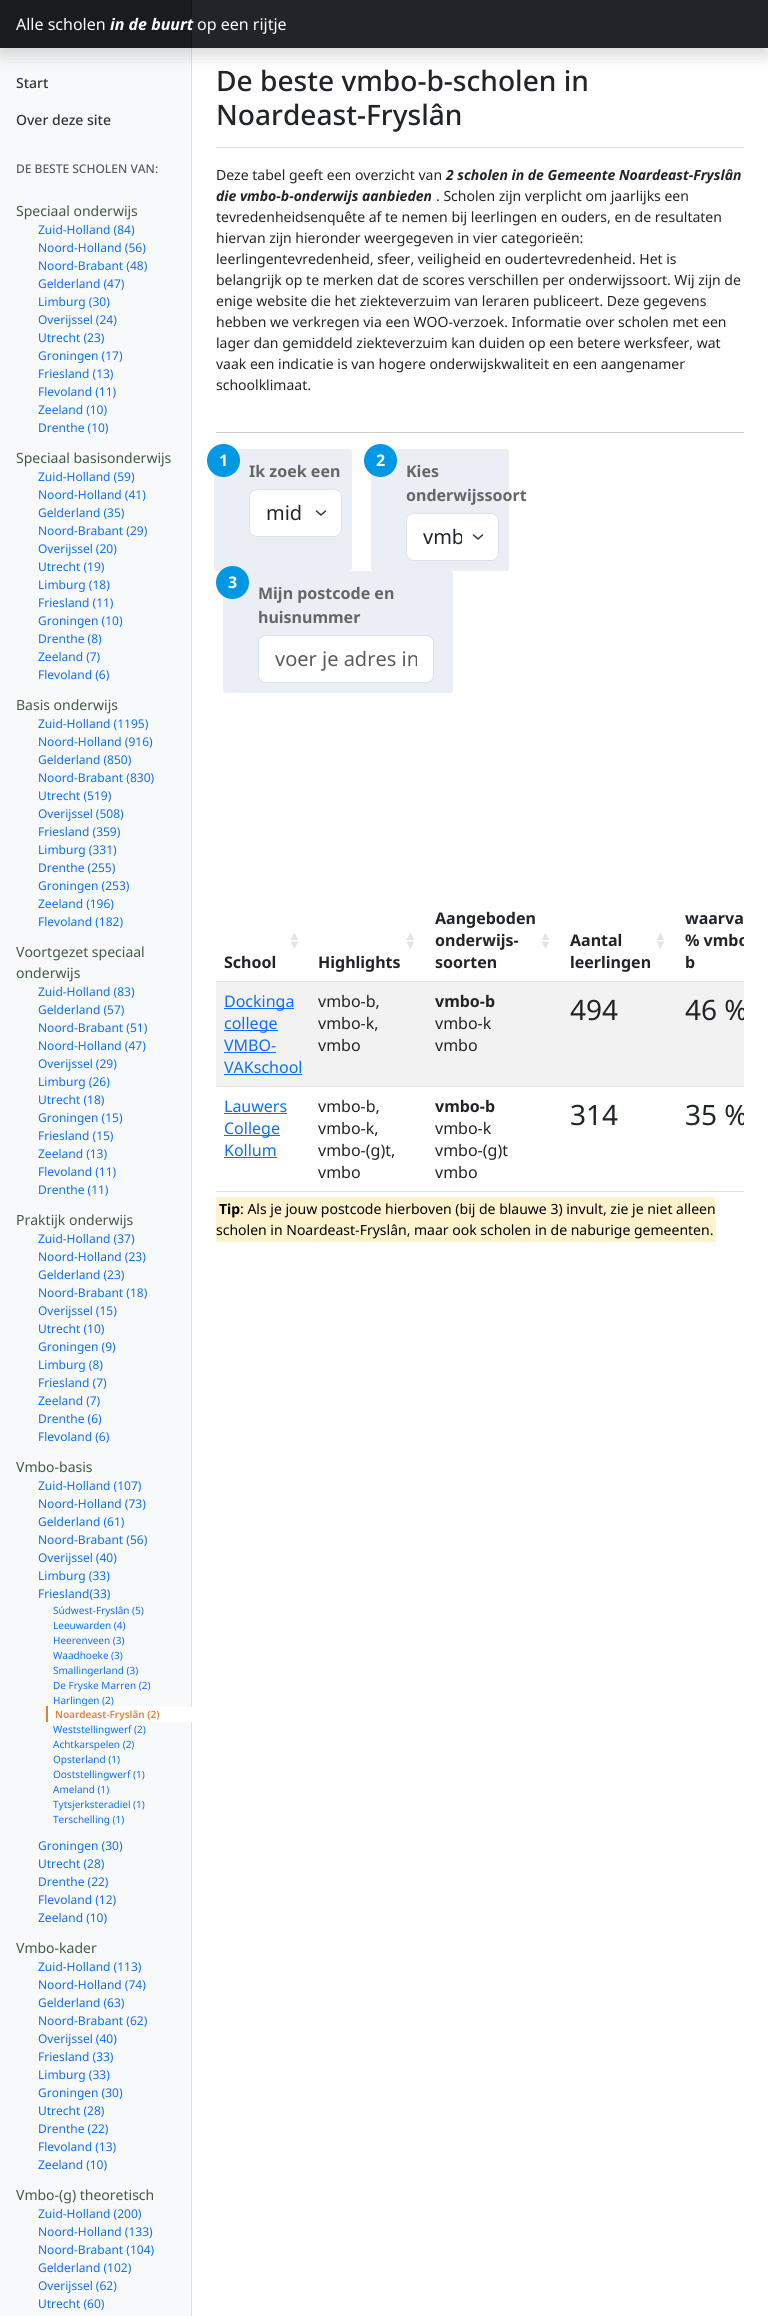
import math
import cairo



def rounded_rect(context, x, y, w, h, r):
    context.new_sub_path()
    for i, (u, v) in enumerate([(x + w - r, y + h - r), (x + r, y + h - r), (x + r, y + r), (x + w - r, y + r)]):
        context.arc(u, v, r, i * math.pi / 2, (i + 1) * math.pi / 2)
    context.close_path()


def draw_shadow(context, x, y, w, h, r, blur, alpha):
    context.push_group_with_content(cairo.Content.ALPHA)
    context.set_operator(cairo.Operator.SOURCE)
    for i in range(15, -16, -2):
        e = blur * i / 6
        if min(w, h) + 2 * e > 0:
            context.set_source_rgba(0, 0, 0, alpha * math.erfc((i - 1) / 8.5) / 2)
            rounded_rect(context, x - e, y - e, w + 2 * e, h + 2 * e, max(0, min(r + e + blur * .6, min(w, h) / 2 + e)))
            context.fill()
    context.mask(context.pop_group())


def draw(context):
    context.set_source_rgb(1, 1, 1)
    context.paint()
    context.set_source_rgb(248 / 255, 249 / 255, 250 / 255)
    context.rectangle(0, 48, 191, 2268)
    context.fill()
    context.set_source_rgb(223 / 255, 224 / 255, 225 / 255)
    context.rectangle(191, 48, 1, 2268)
    context.fill()
    context.set_source_rgb(0, 0, 0)
    draw_shadow(context, 0, 8, 768, 48, 0, 8, 0.15)
    context.set_source_rgb(33 / 255, 37 / 255, 41 / 255)
    context.rectangle(192, 0, 576, 48)
    context.fill()
    context.set_source_rgb(25 / 255, 28 / 255, 31 / 255)
    context.rectangle(0, 0, 191, 48)
    context.fill()
    context.set_source_rgb(19 / 255, 21 / 255, 23 / 255)
    context.rectangle(191, 0, 1, 48)
    context.fill()
    context.set_source_rgb(1, 1, 1)
    context.rectangle(159, 1707, 33, 15)
    context.fill()
    context.set_source_rgb(237 / 255, 125 / 255, 49 / 255)
    context.rectangle(46, 1706, 2, 16)
    context.fill()
    context.set_source_rgb(222 / 255, 226 / 255, 230 / 255)
    context.rectangle(216, 147, 528, 1)
    context.fill()
    context.set_source_rgb(200 / 255, 201 / 255, 202 / 255)
    context.rectangle(216, 432, 528, 1)
    context.fill()
    context.set_source_rgb(235 / 255, 238 / 255, 245 / 255)
    rounded_rect(context, 214, 449, 138, 122, 3)
    context.fill()
    context.set_source_rgb(0, 152 / 255, 228 / 255)
    context.arc(223.5, 460.5, 16.5, 0, 2 * math.pi)
    context.fill()
    context.set_source_rgb(1, 1, 1)
    rounded_rect(context, 249, 489, 93, 48, 8)
    context.fill()
    context.new_path()
    context.move_to(316.5, 511)
    context.line_to(321, 515)
    context.line_to(325.5, 511)
    context.set_source_rgb(52 / 255, 58 / 255, 64 / 255)
    context.set_line_width(1.5)
    context.set_line_cap(cairo.LineCap.ROUND)
    context.set_line_join(cairo.LineJoin.ROUND)
    context.stroke()
    rounded_rect(context, 249.5, 489.5, 92, 47, 7.5)
    context.set_source_rgb(222 / 255, 226 / 255, 230 / 255)
    context.set_line_width(1)
    context.set_line_cap(cairo.LineCap.BUTT)
    context.set_line_join(cairo.LineJoin.MITER)
    context.stroke()
    context.set_source_rgb(235 / 255, 238 / 255, 245 / 255)
    rounded_rect(context, 371, 449, 138, 122, 3)
    context.fill()
    context.set_source_rgb(0, 152 / 255, 228 / 255)
    context.arc(380.5, 460.5, 16.5, 0, 2 * math.pi)
    context.fill()
    context.set_source_rgb(1, 1, 1)
    rounded_rect(context, 406, 513, 93, 48, 8)
    context.fill()
    context.new_path()
    context.move_to(473.5, 535)
    context.line_to(478, 539)
    context.line_to(482.5, 535)
    context.set_source_rgb(52 / 255, 58 / 255, 64 / 255)
    context.set_line_width(1.5)
    context.set_line_cap(cairo.LineCap.ROUND)
    context.set_line_join(cairo.LineJoin.ROUND)
    context.stroke()
    rounded_rect(context, 406.5, 513.5, 92, 47, 7.5)
    context.set_source_rgb(222 / 255, 226 / 255, 230 / 255)
    context.set_line_width(1)
    context.set_line_cap(cairo.LineCap.BUTT)
    context.set_line_join(cairo.LineJoin.MITER)
    context.stroke()
    context.set_source_rgb(235 / 255, 238 / 255, 245 / 255)
    rounded_rect(context, 223, 571, 230, 122, 3)
    context.fill()
    context.set_source_rgb(0, 152 / 255, 228 / 255)
    context.arc(232.5, 582.5, 16.5, 0, 2 * math.pi)
    context.fill()
    context.set_source_rgb(1, 1, 1)
    rounded_rect(context, 258.5, 635.5, 175, 47, 7.5)
    context.fill_preserve()
    context.set_source_rgb(222 / 255, 226 / 255, 230 / 255)
    context.stroke()
    context.rectangle(216, 981, 528, 1)
    context.fill()
    context.set_source_rgb(242 / 255, 242 / 255, 242 / 255)
    context.rectangle(216, 982, 528, 104)
    context.fill()
    context.set_source_rgb(222 / 255, 226 / 255, 230 / 255)
    context.rectangle(216, 1086, 528, 1)
    context.fill()
    context.set_source_rgb(13 / 255, 110 / 255, 253 / 255)
    context.rectangle(224, 1008, 70, 1)
    context.fill()
    context.rectangle(224, 1030, 54, 1)
    context.fill()
    context.rectangle(224, 1052, 52, 1)
    context.fill()
    context.rectangle(224, 1074, 78, 1)
    context.fill()
    context.set_source_rgb(222 / 255, 226 / 255, 230 / 255)
    context.rectangle(216, 1191, 528, 1)
    context.fill()
    context.set_source_rgb(13 / 255, 110 / 255, 253 / 255)
    context.rectangle(224, 1113, 63, 1)
    context.fill()
    context.rectangle(224, 1135, 56, 1)
    context.fill()
    context.rectangle(224, 1157, 53, 1)
    context.fill()
    context.set_source_rgb(1, 243 / 255, 205 / 255)
    context.rectangle(216, 1197, 499, 21)
    context.fill()
    context.rectangle(216, 1218, 500, 24)
    context.fill()
    context.select_font_face("Noto Sans")
    context.set_font_size(16)
    context.set_source_rgb(1, 1, 1)
    context.move_to(16, 30)
    context.show_text("Alle scholen")
    context.select_font_face("Noto Sans", cairo.FontSlant.ITALIC, cairo.FontWeight.BOLD)
    context.move_to(110, 30)
    context.show_text("in de buurt")
    context.select_font_face("Noto Sans")
    context.move_to(197, 30)
    context.show_text("op een rijtje")
    context.select_font_face("Noto Sans Medium")
    context.set_font_size(14)
    context.set_source_rgb(51 / 255, 51 / 255, 51 / 255)
    context.move_to(16, 88)
    context.show_text("Start")
    context.move_to(16, 125)
    context.show_text("Over deze site")
    context.set_font_size(12)
    context.set_source_rgb(89 / 255, 92 / 255, 95 / 255)
    context.move_to(16, 173)
    context.show_text("DE BESTE SCHOLEN VAN:")
    context.select_font_face("Noto Sans")
    context.set_font_size(14)
    context.set_source_rgb(69 / 255, 89 / 255, 69 / 255)
    context.move_to(16, 216)
    context.show_text("Speciaal onderwijs")
    context.set_font_size(12)
    context.set_source_rgb(13 / 255, 110 / 255, 253 / 255)
    context.move_to(38, 234)
    context.show_text("Zuid-Holland (84)")
    context.move_to(38, 252)
    context.show_text("Noord-Holland (56)")
    context.move_to(38, 270)
    context.show_text("Noord-Brabant (48)")
    context.move_to(38, 288)
    context.show_text("Gelderland (47)")
    context.move_to(38, 306)
    context.show_text("Limburg (30)")
    context.move_to(38, 324)
    context.show_text("Overijssel (24)")
    context.move_to(38, 342)
    context.show_text("Utrecht (23)")
    context.move_to(38, 360)
    context.show_text("Groningen (17)")
    context.move_to(38, 378)
    context.show_text("Friesland (13)")
    context.move_to(38, 396)
    context.show_text("Flevoland (11)")
    context.move_to(38, 414)
    context.show_text("Zeeland (10)")
    context.move_to(38, 432)
    context.show_text("Drenthe (10)")
    context.set_font_size(14)
    context.set_source_rgb(69 / 255, 89 / 255, 69 / 255)
    context.move_to(16, 463)
    context.show_text("Speciaal basisonderwijs")
    context.set_font_size(12)
    context.set_source_rgb(13 / 255, 110 / 255, 253 / 255)
    context.move_to(38, 481)
    context.show_text("Zuid-Holland (59)")
    context.move_to(38, 499)
    context.show_text("Noord-Holland (41)")
    context.move_to(38, 517)
    context.show_text("Gelderland (35)")
    context.move_to(38, 535)
    context.show_text("Noord-Brabant (29)")
    context.move_to(38, 553)
    context.show_text("Overijssel (20)")
    context.move_to(38, 571)
    context.show_text("Utrecht (19)")
    context.move_to(38, 589)
    context.show_text("Limburg (18)")
    context.move_to(38, 607)
    context.show_text("Friesland (11)")
    context.move_to(38, 625)
    context.show_text("Groningen (10)")
    context.move_to(38, 643)
    context.show_text("Drenthe (8)")
    context.move_to(38, 661)
    context.show_text("Zeeland (7)")
    context.move_to(38, 679)
    context.show_text("Flevoland (6)")
    context.set_font_size(14)
    context.set_source_rgb(69 / 255, 89 / 255, 69 / 255)
    context.move_to(16, 710)
    context.show_text("Basis onderwijs")
    context.set_font_size(12)
    context.set_source_rgb(13 / 255, 110 / 255, 253 / 255)
    context.move_to(38, 728)
    context.show_text("Zuid-Holland (1195)")
    context.move_to(38, 746)
    context.show_text("Noord-Holland (916)")
    context.move_to(38, 764)
    context.show_text("Gelderland (850)")
    context.move_to(38, 782)
    context.show_text("Noord-Brabant (830)")
    context.move_to(38, 800)
    context.show_text("Utrecht (519)")
    context.move_to(38, 818)
    context.show_text("Overijssel (508)")
    context.move_to(38, 836)
    context.show_text("Friesland (359)")
    context.move_to(38, 854)
    context.show_text("Limburg (331)")
    context.move_to(38, 872)
    context.show_text("Drenthe (255)")
    context.move_to(38, 890)
    context.show_text("Groningen (253)")
    context.move_to(38, 908)
    context.show_text("Zeeland (196)")
    context.move_to(38, 926)
    context.show_text("Flevoland (182)")
    context.set_font_size(14)
    context.set_source_rgb(69 / 255, 89 / 255, 69 / 255)
    context.move_to(16, 957)
    context.show_text("Voortgezet speciaal")
    context.move_to(16, 978)
    context.show_text("onderwijs")
    context.set_font_size(12)
    context.set_source_rgb(13 / 255, 110 / 255, 253 / 255)
    context.move_to(38, 996)
    context.show_text("Zuid-Holland (83)")
    context.move_to(38, 1014)
    context.show_text("Gelderland (57)")
    context.move_to(38, 1032)
    context.show_text("Noord-Brabant (51)")
    context.move_to(38, 1050)
    context.show_text("Noord-Holland (47)")
    context.move_to(38, 1068)
    context.show_text("Overijssel (29)")
    context.move_to(38, 1086)
    context.show_text("Limburg (26)")
    context.move_to(38, 1104)
    context.show_text("Utrecht (18)")
    context.move_to(38, 1122)
    context.show_text("Groningen (15)")
    context.move_to(38, 1140)
    context.show_text("Friesland (15)")
    context.move_to(38, 1158)
    context.show_text("Zeeland (13)")
    context.move_to(38, 1176)
    context.show_text("Flevoland (11)")
    context.move_to(38, 1194)
    context.show_text("Drenthe (11)")
    context.set_font_size(14)
    context.set_source_rgb(69 / 255, 89 / 255, 69 / 255)
    context.move_to(16, 1225)
    context.show_text("Praktijk onderwijs")
    context.set_font_size(12)
    context.set_source_rgb(13 / 255, 110 / 255, 253 / 255)
    context.move_to(38, 1243)
    context.show_text("Zuid-Holland (37)")
    context.move_to(38, 1261)
    context.show_text("Noord-Holland (23)")
    context.move_to(38, 1279)
    context.show_text("Gelderland (23)")
    context.move_to(38, 1297)
    context.show_text("Noord-Brabant (18)")
    context.move_to(38, 1315)
    context.show_text("Overijssel (15)")
    context.move_to(38, 1333)
    context.show_text("Utrecht (10)")
    context.move_to(38, 1351)
    context.show_text("Groningen (9)")
    context.move_to(38, 1369)
    context.show_text("Limburg (8)")
    context.move_to(38, 1387)
    context.show_text("Friesland (7)")
    context.move_to(38, 1405)
    context.show_text("Zeeland (7)")
    context.move_to(38, 1423)
    context.show_text("Drenthe (6)")
    context.move_to(38, 1441)
    context.show_text("Flevoland (6)")
    context.set_font_size(14)
    context.set_source_rgb(69 / 255, 89 / 255, 69 / 255)
    context.move_to(16, 1472)
    context.show_text("Vmbo-basis")
    context.set_font_size(12)
    context.set_source_rgb(13 / 255, 110 / 255, 253 / 255)
    context.move_to(38, 1490)
    context.show_text("Zuid-Holland (107)")
    context.move_to(38, 1508)
    context.show_text("Noord-Holland (73)")
    context.move_to(38, 1526)
    context.show_text("Gelderland (61)")
    context.move_to(38, 1544)
    context.show_text("Noord-Brabant (56)")
    context.move_to(38, 1562)
    context.show_text("Overijssel (40)")
    context.move_to(38, 1580)
    context.show_text("Limburg (33)")
    context.move_to(38, 1598)
    context.show_text("Friesland(33)")
    context.set_font_size(10)
    context.move_to(53, 1614)
    context.show_text("Súdwest-Fryslân (5)")
    context.move_to(53, 1629)
    context.show_text("Leeuwarden (4)")
    context.move_to(53, 1644)
    context.show_text("Heerenveen (3)")
    context.move_to(53, 1659)
    context.show_text("Waadhoeke (3)")
    context.move_to(53, 1674)
    context.show_text("Smallingerland (3)")
    context.move_to(53, 1689)
    context.show_text("De Fryske Marren (2)")
    context.move_to(53, 1704)
    context.show_text("Harlingen (2)")
    context.set_source_rgb(1, 1, 1)
    context.rectangle(48, 1706, 111, 16)
    context.fill()
    context.select_font_face("Noto Sans SemiBold")
    context.set_source_rgb(237 / 255, 125 / 255, 49 / 255)
    context.move_to(55, 1718)
    context.show_text("Noardeast-Fryslân (2)")
    context.select_font_face("Noto Sans")
    context.set_source_rgb(13 / 255, 110 / 255, 253 / 255)
    context.move_to(53, 1733)
    context.show_text("Weststellingwerf (2)")
    context.move_to(53, 1748)
    context.show_text("Achtkarspelen (2)")
    context.move_to(53, 1763)
    context.show_text("Opsterland (1)")
    context.move_to(53, 1778)
    context.show_text("Ooststellingwerf (1)")
    context.move_to(53, 1793)
    context.show_text("Ameland (1)")
    context.move_to(53, 1808)
    context.show_text("Tytsjerksteradiel (1)")
    context.move_to(53, 1823)
    context.show_text("Terschelling (1)")
    context.set_font_size(12)
    context.move_to(38, 1850)
    context.show_text("Groningen (30)")
    context.move_to(38, 1868)
    context.show_text("Utrecht (28)")
    context.move_to(38, 1886)
    context.show_text("Drenthe (22)")
    context.move_to(38, 1904)
    context.show_text("Flevoland (12)")
    context.move_to(38, 1922)
    context.show_text("Zeeland (10)")
    context.set_font_size(14)
    context.set_source_rgb(69 / 255, 89 / 255, 69 / 255)
    context.move_to(16, 1953)
    context.show_text("Vmbo-kader")
    context.set_font_size(12)
    context.set_source_rgb(13 / 255, 110 / 255, 253 / 255)
    context.move_to(38, 1971)
    context.show_text("Zuid-Holland (113)")
    context.move_to(38, 1989)
    context.show_text("Noord-Holland (74)")
    context.move_to(38, 2007)
    context.show_text("Gelderland (63)")
    context.move_to(38, 2025)
    context.show_text("Noord-Brabant (62)")
    context.move_to(38, 2043)
    context.show_text("Overijssel (40)")
    context.move_to(38, 2061)
    context.show_text("Friesland (33)")
    context.move_to(38, 2079)
    context.show_text("Limburg (33)")
    context.move_to(38, 2097)
    context.show_text("Groningen (30)")
    context.move_to(38, 2115)
    context.show_text("Utrecht (28)")
    context.move_to(38, 2133)
    context.show_text("Drenthe (22)")
    context.move_to(38, 2151)
    context.show_text("Flevoland (13)")
    context.move_to(38, 2169)
    context.show_text("Zeeland (10)")
    context.set_font_size(14)
    context.set_source_rgb(69 / 255, 89 / 255, 69 / 255)
    context.move_to(16, 2200)
    context.show_text("Vmbo-(g) theoretisch")
    context.set_font_size(12)
    context.set_source_rgb(13 / 255, 110 / 255, 253 / 255)
    context.move_to(38, 2218)
    context.show_text("Zuid-Holland (200)")
    context.move_to(38, 2236)
    context.show_text("Noord-Holland (133)")
    context.move_to(38, 2254)
    context.show_text("Noord-Brabant (104)")
    context.move_to(38, 2272)
    context.show_text("Gelderland (102)")
    context.move_to(38, 2290)
    context.show_text("Overijssel (62)")
    context.move_to(38, 2308)
    context.show_text("Utrecht (60)")
    context.select_font_face("Noto Sans Medium")
    context.set_font_size(28.1)
    context.set_source_rgb(33 / 255, 37 / 255, 41 / 255)
    context.move_to(216, 91)
    context.show_text("De beste vmbo-b-scholen in")
    context.move_to(216, 125)
    context.show_text("Noardeast-Fryslân")
    context.select_font_face("Noto Sans")
    context.set_font_size(14)
    context.move_to(216, 180)
    context.show_text("Deze tabel geeft een overzicht van")
    context.select_font_face("Noto Sans", cairo.FontSlant.ITALIC, cairo.FontWeight.BOLD)
    context.move_to(446, 180)
    context.show_text("2 scholen in de Gemeente Noardeast-Fryslân")
    context.move_to(216, 201)
    context.show_text("die vmbo-b-onderwijs aanbieden")
    context.select_font_face("Noto Sans")
    context.move_to(436, 201)
    context.show_text(". Scholen zijn verplicht om jaarlijks een")
    context.move_to(216, 222)
    context.show_text("tevredenheidsenquête af te nemen bij leerlingen en ouders, en de resultaten")
    context.move_to(216, 243)
    context.show_text("hiervan zijn hieronder weergegeven in vier categorieën:")
    context.move_to(216, 264)
    context.show_text("leerlingentevredenheid, sfeer, veiligheid en oudertevredenheid. Het is")
    context.move_to(216, 285)
    context.show_text("belangrijk op te merken dat de scores verschillen per onderwijssoort. Wij zijn de")
    context.move_to(216, 306)
    context.show_text("enige website die het ziekteverzuim van leraren publiceert. Deze gegevens")
    context.move_to(216, 327)
    context.show_text("hebben we verkregen via een WOO-verzoek. Informatie over scholen met een")
    context.move_to(216, 348)
    context.show_text("lager dan gemiddeld ziekteverzuim kan duiden op een betere werksfeer, wat")
    context.move_to(216, 369)
    context.show_text("vaak een indicatie is van hogere onderwijskwaliteit en een aangenamer")
    context.move_to(216, 390)
    context.show_text("schoolklimaat.")
    context.select_font_face("Noto Sans", cairo.FontSlant.NORMAL, cairo.FontWeight.BOLD)
    context.set_font_size(16)
    context.set_source_rgb(1, 1, 1)
    context.move_to(219, 466)
    context.show_text("1")
    context.set_source_rgb(102 / 255, 102 / 255, 102 / 255)
    context.move_to(249, 477)
    context.show_text("Ik zoek een")
    context.select_font_face("Noto Sans")
    context.set_font_size(20)
    context.set_source_rgb(33 / 255, 37 / 255, 41 / 255)
    context.move_to(266, 520)
    context.show_text("mid")
    context.select_font_face("Noto Sans", cairo.FontSlant.NORMAL, cairo.FontWeight.BOLD)
    context.set_font_size(16)
    context.set_source_rgb(1, 1, 1)
    context.move_to(376, 466)
    context.show_text("2")
    context.set_source_rgb(102 / 255, 102 / 255, 102 / 255)
    context.move_to(406, 477)
    context.show_text("Kies")
    context.move_to(406, 501)
    context.show_text("onderwijssoort")
    context.save()
    context.rectangle(423, 522, 39, 30)
    context.clip()
    context.select_font_face("Noto Sans")
    context.set_font_size(20)
    context.set_source_rgb(33 / 255, 37 / 255, 41 / 255)
    context.move_to(423, 544)
    context.show_text("vmb")
    context.restore()
    context.set_source_rgb(1, 1, 1)
    context.move_to(228, 588)
    context.show_text("3")
    context.set_source_rgb(102 / 255, 102 / 255, 102 / 255)
    context.move_to(258, 599)
    context.show_text("Mijn postcode en")
    context.move_to(258, 623)
    context.show_text("huisnummer")
    context.save()
    context.rectangle(275, 645, 142, 27)
    context.clip()
    context.select_font_face("Noto Sans")
    context.set_font_size(20)
    context.set_source_rgb(89 / 255, 92 / 255, 95 / 255)
    context.move_to(275, 666)
    context.show_text("voer je adres in")
    context.restore()
    context.select_font_face("Liberation Sans", cairo.FontSlant.NORMAL, cairo.FontWeight.BOLD)
    context.set_font_size(13)
    context.set_source_rgb(227 / 255, 228 / 255, 228 / 255)
    context.move_to(288, 940)
    context.show_text("▲")
    context.move_to(288, 949)
    context.show_text("▼")
    context.select_font_face("Noto Sans", cairo.FontSlant.NORMAL, cairo.FontWeight.BOLD)
    context.set_font_size(16)
    context.set_source_rgb(33 / 255, 37 / 255, 41 / 255)
    context.move_to(224, 968)
    context.show_text("School")
    context.select_font_face("Liberation Sans", cairo.FontSlant.NORMAL, cairo.FontWeight.BOLD)
    context.set_font_size(13)
    context.set_source_rgb(227 / 255, 228 / 255, 228 / 255)
    context.move_to(404, 940)
    context.show_text("▲")
    context.move_to(404, 949)
    context.show_text("▼")
    context.select_font_face("Noto Sans", cairo.FontSlant.NORMAL, cairo.FontWeight.BOLD)
    context.set_font_size(16)
    context.set_source_rgb(33 / 255, 37 / 255, 41 / 255)
    context.move_to(318, 968)
    context.show_text("Highlights")
    context.move_to(435, 924)
    context.show_text("Aangeboden")
    context.move_to(435, 946)
    context.show_text("onderwijs-")
    context.select_font_face("Liberation Sans", cairo.FontSlant.NORMAL, cairo.FontWeight.BOLD)
    context.set_font_size(13)
    context.set_source_rgb(227 / 255, 228 / 255, 228 / 255)
    context.move_to(539, 940)
    context.show_text("▲")
    context.move_to(539, 949)
    context.show_text("▼")
    context.select_font_face("Noto Sans", cairo.FontSlant.NORMAL, cairo.FontWeight.BOLD)
    context.set_font_size(16)
    context.set_source_rgb(33 / 255, 37 / 255, 41 / 255)
    context.move_to(435, 968)
    context.show_text("soorten")
    context.move_to(570, 946)
    context.show_text("Aantal")
    context.select_font_face("Liberation Sans", cairo.FontSlant.NORMAL, cairo.FontWeight.BOLD)
    context.set_font_size(13)
    context.set_source_rgb(227 / 255, 228 / 255, 228 / 255)
    context.move_to(654, 940)
    context.show_text("▲")
    context.move_to(654, 949)
    context.show_text("▼")
    context.select_font_face("Noto Sans", cairo.FontSlant.NORMAL, cairo.FontWeight.BOLD)
    context.set_font_size(16)
    context.set_source_rgb(33 / 255, 37 / 255, 41 / 255)
    context.move_to(570, 968)
    context.show_text("leerlingen")
    context.move_to(685, 924)
    context.show_text("waarva")
    context.save()
    context.rectangle(216, 893, 528, 305)
    context.clip()
    context.move_to(685, 946)
    context.show_text("% vmbo")
    context.restore()
    context.move_to(685, 968)
    context.show_text("b")
    context.select_font_face("Noto Sans")
    context.set_source_rgb(13 / 255, 110 / 255, 253 / 255)
    context.move_to(224, 1007)
    context.show_text("Dockinga")
    context.move_to(224, 1029)
    context.show_text("college")
    context.move_to(224, 1051)
    context.show_text("VMBO-")
    context.move_to(224, 1073)
    context.show_text("VAKschool")
    context.set_source_rgb(33 / 255, 37 / 255, 41 / 255)
    context.move_to(318, 1007)
    context.show_text("vmbo-b,")
    context.move_to(318, 1029)
    context.show_text("vmbo-k,")
    context.move_to(318, 1051)
    context.show_text("vmbo")
    context.select_font_face("Noto Sans", cairo.FontSlant.NORMAL, cairo.FontWeight.BOLD)
    context.move_to(435, 1007)
    context.show_text("vmbo-b")
    context.select_font_face("Noto Sans")
    context.move_to(435, 1029)
    context.show_text("vmbo-k")
    context.move_to(435, 1051)
    context.show_text("vmbo")
    context.set_font_size(28)
    context.move_to(570, 1020)
    context.show_text("494")
    context.save()
    context.rectangle(216, 893, 528, 305)
    context.clip()
    context.move_to(685, 1020)
    context.show_text("46 %")
    context.restore()
    context.set_font_size(16)
    context.set_source_rgb(13 / 255, 110 / 255, 253 / 255)
    context.move_to(224, 1112)
    context.show_text("Lauwers")
    context.move_to(224, 1134)
    context.show_text("College")
    context.move_to(224, 1156)
    context.show_text("Kollum")
    context.set_source_rgb(33 / 255, 37 / 255, 41 / 255)
    context.move_to(318, 1112)
    context.show_text("vmbo-b,")
    context.move_to(318, 1134)
    context.show_text("vmbo-k,")
    context.move_to(318, 1156)
    context.show_text("vmbo-(g)t,")
    context.move_to(318, 1178)
    context.show_text("vmbo")
    context.select_font_face("Noto Sans", cairo.FontSlant.NORMAL, cairo.FontWeight.BOLD)
    context.move_to(435, 1112)
    context.show_text("vmbo-b")
    context.select_font_face("Noto Sans")
    context.move_to(435, 1134)
    context.show_text("vmbo-k")
    context.move_to(435, 1156)
    context.show_text("vmbo-(g)t")
    context.move_to(435, 1178)
    context.show_text("vmbo")
    context.set_font_size(28)
    context.move_to(570, 1125)
    context.show_text("314")
    context.save()
    context.rectangle(216, 893, 528, 305)
    context.clip()
    context.move_to(685, 1125)
    context.show_text("35 %")
    context.restore()
    context.select_font_face("Noto Sans", cairo.FontSlant.NORMAL, cairo.FontWeight.BOLD)
    context.set_font_size(14)
    context.set_source_rgb(0, 0, 0)
    context.move_to(219, 1214)
    context.show_text("Tip")
    context.select_font_face("Noto Sans")
    context.move_to(240, 1214)
    context.show_text(": Als je jouw postcode hierboven (bij de blauwe 3) invult, zie je niet alleen")
    context.move_to(216, 1235)
    context.show_text("scholen in Noardeast-Fryslân, maar ook scholen in de naburige gemeenten.")


surface = cairo.ImageSurface(cairo.Format.RGB24, 768, 2316)
context = cairo.Context(surface)
options = cairo.FontOptions()
options.set_hint_metrics(cairo.HintMetrics.OFF)
options.set_hint_style(cairo.HintStyle.NONE)
context.set_font_options(options)
context.set_miter_limit(4)
draw(context)
surface.write_to_png("out.png")
